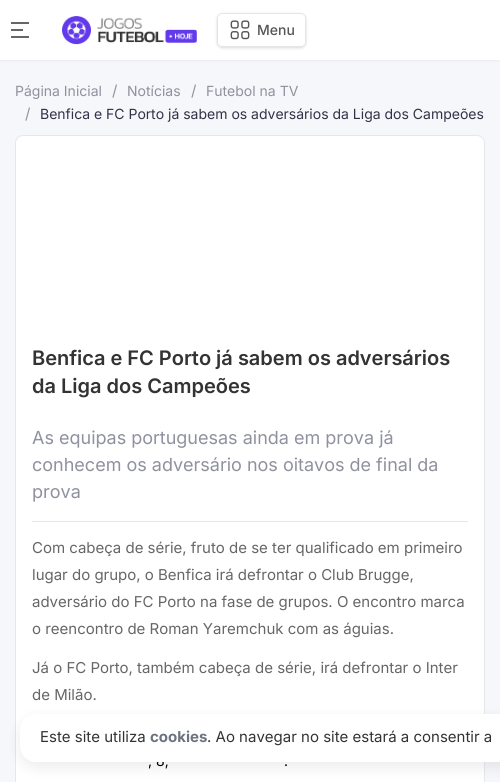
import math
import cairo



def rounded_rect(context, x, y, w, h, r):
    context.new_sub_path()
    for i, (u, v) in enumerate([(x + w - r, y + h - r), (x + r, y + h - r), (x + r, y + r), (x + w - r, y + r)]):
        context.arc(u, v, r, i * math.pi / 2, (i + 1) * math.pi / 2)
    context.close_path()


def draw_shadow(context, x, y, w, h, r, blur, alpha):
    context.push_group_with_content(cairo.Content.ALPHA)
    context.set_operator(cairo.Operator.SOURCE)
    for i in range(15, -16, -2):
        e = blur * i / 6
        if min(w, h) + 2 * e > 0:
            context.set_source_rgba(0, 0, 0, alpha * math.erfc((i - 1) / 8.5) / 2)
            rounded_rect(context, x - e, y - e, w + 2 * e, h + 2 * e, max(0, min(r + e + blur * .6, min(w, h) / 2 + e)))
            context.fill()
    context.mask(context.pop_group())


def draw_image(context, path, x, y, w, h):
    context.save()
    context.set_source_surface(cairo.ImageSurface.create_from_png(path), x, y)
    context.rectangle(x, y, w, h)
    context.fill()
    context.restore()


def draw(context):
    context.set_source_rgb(245 / 255, 247 / 255, 250 / 255)
    context.paint()
    context.set_source_rgb(0, 0, 0)
    draw_shadow(context, 0, 1, 500, 60, 0, 1, 0.05)
    context.set_source_rgb(1, 1, 1)
    context.rectangle(0, 0, 500, 60)
    context.fill()
    draw_image(context, "images/1.png", 11, 22, 18, 16)
    draw_image(context, "images/2.png", 62, 16, 135, 29)
    context.save()
    context.set_fill_rule(cairo.FillRule.EVEN_ODD)
    context.new_path()
    context.move_to(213, 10)
    context.line_to(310, 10)
    context.line_to(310, 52)
    context.line_to(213, 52)
    context.close_path()
    context.move_to(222, 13)
    context.line_to(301, 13)
    context.curve_to(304, 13, 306, 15, 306, 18)
    context.line_to(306, 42)
    context.curve_to(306, 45, 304, 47, 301, 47)
    context.line_to(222, 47)
    context.curve_to(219, 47, 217, 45, 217, 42)
    context.line_to(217, 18)
    context.curve_to(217, 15, 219, 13, 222, 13)
    context.close_path()
    context.clip()
    context.set_source_rgb(0, 0, 0)
    draw_shadow(context, 217, 14, 89, 34, 5, 1, 0.06)
    context.restore()
    context.save()
    context.set_fill_rule(cairo.FillRule.EVEN_ODD)
    context.new_path()
    context.move_to(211, 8)
    context.line_to(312, 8)
    context.line_to(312, 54)
    context.line_to(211, 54)
    context.close_path()
    context.move_to(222, 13)
    context.line_to(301, 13)
    context.curve_to(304, 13, 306, 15, 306, 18)
    context.line_to(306, 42)
    context.curve_to(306, 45, 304, 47, 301, 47)
    context.line_to(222, 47)
    context.curve_to(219, 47, 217, 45, 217, 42)
    context.line_to(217, 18)
    context.curve_to(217, 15, 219, 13, 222, 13)
    context.close_path()
    context.clip()
    context.set_source_rgb(0, 0, 0)
    draw_shadow(context, 217, 14, 89, 34, 5, 1.5, 0.1)
    context.restore()
    rounded_rect(context, 217.5, 13.5, 88, 33, 4.5)
    context.set_source_rgb(229 / 255, 229 / 255, 229 / 255)
    context.set_line_width(1)
    context.stroke()
    draw_image(context, "images/3.png", 230, 20, 20, 20)
    context.set_source_rgb(1, 1, 1)
    rounded_rect(context, 15.5, 135.5, 469, 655, 7.5)
    context.fill_preserve()
    context.set_source_rgb(229 / 255, 231 / 255, 235 / 255)
    context.stroke()
    context.rectangle(32, 521, 436, 1)
    context.fill()
    context.set_source_rgb(0, 0, 0)
    draw_shadow(context, 20, 719, 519, 48, 16, 7.5, 0.08)
    context.select_font_face("Inter Medium")
    context.set_font_size(14)
    context.set_source_rgb(85 / 255, 85 / 255, 85 / 255)
    context.move_to(257, 35)
    context.show_text("Menu")
    context.select_font_face("Inter")
    context.set_source_rgb(143 / 255, 145 / 255, 158 / 255)
    context.move_to(15, 96)
    context.show_text("Página Inicial")
    context.set_font_size(15)
    context.move_to(112, 96)
    context.show_text("/")
    context.set_font_size(14)
    context.move_to(127, 96)
    context.show_text("Notícias")
    context.set_font_size(15)
    context.move_to(191, 96)
    context.show_text("/")
    context.set_font_size(14)
    context.move_to(206, 96)
    context.show_text("Futebol na TV")
    context.set_font_size(15)
    context.move_to(25, 119)
    context.show_text("/")
    context.set_font_size(14)
    context.set_source_rgb(50 / 255, 50 / 255, 71 / 255)
    context.move_to(40, 119)
    context.show_text("Benfica e FC Porto já sabem os adversários da Liga dos Campeões")
    context.select_font_face("Inter SemiBold")
    context.set_font_size(20)
    context.set_source_rgb(51 / 255, 51 / 255, 51 / 255)
    context.move_to(32, 365)
    context.show_text("Benfica e FC Porto já sabem os adversários")
    context.move_to(32, 393)
    context.show_text("da Liga dos Campeões")
    context.select_font_face("Inter")
    context.set_font_size(18)
    context.set_source_rgb(143 / 255, 145 / 255, 158 / 255)
    context.move_to(32, 444)
    context.show_text("As equipas portuguesas ainda em prova já")
    context.move_to(32, 471)
    context.show_text("conhecem os adversário nos oitavos de final da")
    context.move_to(32, 498)
    context.show_text("prova")
    context.set_font_size(15)
    context.set_source_rgb(102 / 255, 102 / 255, 102 / 255)
    context.move_to(32, 553)
    context.show_text("Com cabeça de série, fruto de se ter qualificado em primeiro")
    context.move_to(32, 580)
    context.show_text("lugar do grupo, o Benfica irá defrontar o Club Brugge,")
    context.move_to(32, 607)
    context.show_text("adversário do FC Porto na fase de grupos. O encontro marca")
    context.move_to(32, 634)
    context.show_text("o reencontro de Roman Yaremchuk com as águias.")
    context.move_to(32, 673)
    context.show_text("Já o FC Porto, também cabeça de série, irá defrontar o Inter")
    context.move_to(32, 700)
    context.show_text("de Milão.")
    context.set_font_size(14)
    context.set_source_rgb(0, 0, 0)
    context.move_to(148, 766)
    context.show_text(", 8,")
    context.move_to(284, 766)
    context.show_text(".")
    context.set_source_rgb(1, 1, 1)
    rounded_rect(context, 20, 714, 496, 48, 16)
    context.fill()
    context.set_font_size(15)
    context.set_source_rgb(51 / 255, 51 / 255, 51 / 255)
    context.move_to(40, 742)
    context.show_text("Este site utiliza")
    context.select_font_face("Inter", cairo.FontSlant.NORMAL, cairo.FontWeight.BOLD)
    context.set_source_rgb(107 / 255, 114 / 255, 128 / 255)
    context.move_to(150, 742)
    context.show_text("cookies")
    context.select_font_face("Inter")
    context.set_source_rgb(51 / 255, 51 / 255, 51 / 255)
    context.move_to(207, 742)
    context.show_text(". Ao navegar no site estará a consentir a")


surface = cairo.ImageSurface(cairo.Format.RGB24, 500, 782)
context = cairo.Context(surface)
options = cairo.FontOptions()
options.set_hint_metrics(cairo.HintMetrics.OFF)
options.set_hint_style(cairo.HintStyle.NONE)
context.set_font_options(options)
context.set_miter_limit(4)
draw(context)
surface.write_to_png("out.png")
